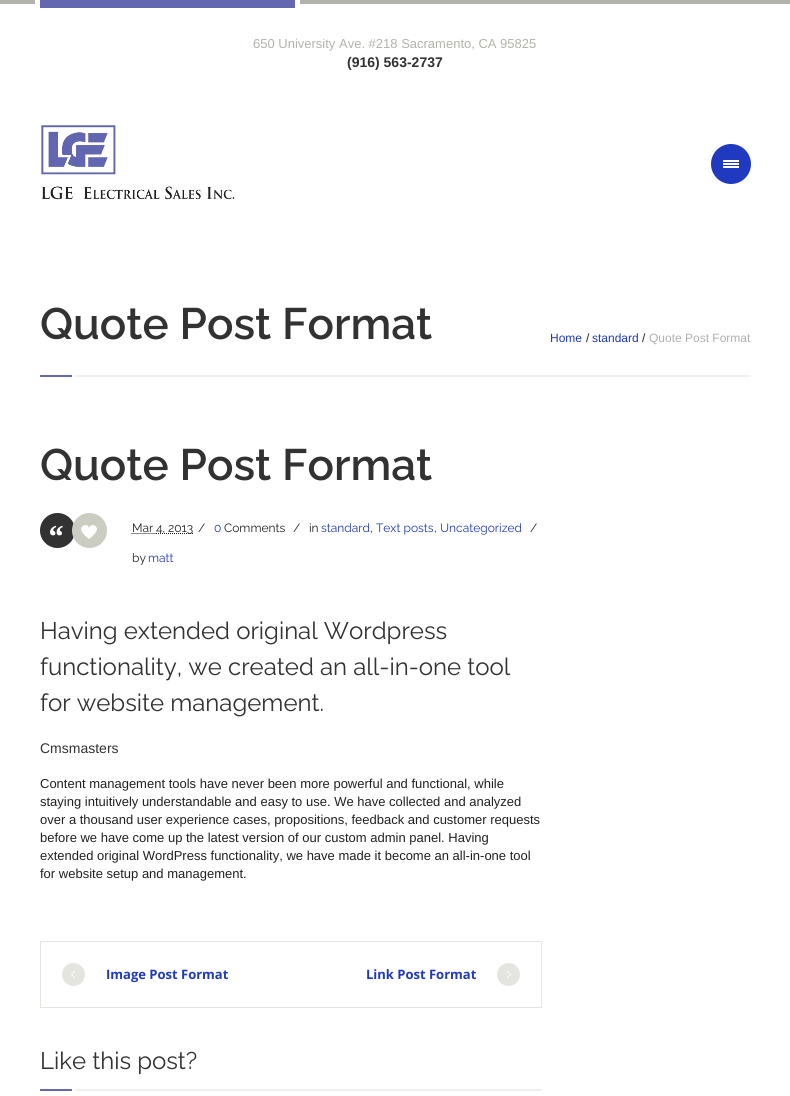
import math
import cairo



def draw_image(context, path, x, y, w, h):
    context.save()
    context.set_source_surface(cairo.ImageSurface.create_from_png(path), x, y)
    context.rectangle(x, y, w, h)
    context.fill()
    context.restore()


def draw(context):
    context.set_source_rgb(1, 1, 1)
    context.paint()
    context.set_source_rgb(178 / 255, 179 / 255, 170 / 255)
    context.rectangle(0, 0, 790, 4)
    context.fill()
    context.set_source_rgb(99 / 255, 103 / 255, 175 / 255)
    context.rectangle(35, 0, 265, 8)
    context.fill()
    context.set_source_rgb(1, 1, 1)
    context.rectangle(295, 0, 5, 8)
    context.fill()
    context.rectangle(35, 0, 5, 8)
    context.fill()
    draw_image(context, "images/1.png", 41, 125, 194, 75)
    context.set_source_rgb(31 / 255, 58 / 255, 193 / 255)
    context.arc(731, 164, 20, 0, 2 * math.pi)
    context.fill()
    draw_image(context, "images/2.png", 723, 160, 16, 8)
    context.set_source_rgb(99 / 255, 103 / 255, 175 / 255)
    context.rectangle(40, 375, 35, 2)
    context.fill()
    context.set_source_rgb(1, 1, 1)
    context.rectangle(72, 375, 3, 2)
    context.fill()
    context.set_source_rgb(240 / 255, 240 / 255, 238 / 255)
    context.rectangle(75, 375, 676, 2)
    context.fill()
    context.set_source_rgb(50 / 255, 50 / 255, 50 / 255)
    context.arc(57.5, 530.5, 17.5, 0, 2 * math.pi)
    context.fill()
    context.set_source_rgb(203 / 255, 204 / 255, 194 / 255)
    context.arc(89.5, 530.5, 17.5, 0, 2 * math.pi)
    context.fill()
    draw_image(context, "images/3.png", 81, 525, 16, 14)
    context.new_path()
    context.move_to(131.5, 533.5)
    context.line_to(156, 533.5)
    context.set_source_rgb(32 / 255, 32 / 255, 32 / 255)
    context.set_line_width(1)
    context.set_dash([1, 1])
    context.stroke()
    context.new_path()
    context.move_to(156, 533.5)
    context.line_to(168, 533.5)
    context.stroke()
    context.new_path()
    context.move_to(168, 533.5)
    context.line_to(193.5, 533.5)
    context.stroke()
    context.rectangle(40.5, 941.5, 501, 66)
    context.set_source_rgb(229 / 255, 229 / 255, 224 / 255)
    context.set_dash([])
    context.stroke()
    draw_image(context, "images/4.png", 62, 963, 23, 23)
    draw_image(context, "images/5.png", 497, 963, 23, 23)
    context.set_source_rgb(240 / 255, 240 / 255, 238 / 255)
    context.rectangle(75, 1089, 467, 2)
    context.fill()
    context.set_source_rgb(99 / 255, 103 / 255, 175 / 255)
    context.rectangle(40, 1089, 35, 2)
    context.fill()
    context.set_source_rgb(1, 1, 1)
    context.rectangle(72, 1089, 3, 2)
    context.fill()
    context.select_font_face("Liberation Sans")
    context.set_font_size(13)
    context.set_source_rgb(178 / 255, 179 / 255, 170 / 255)
    context.move_to(253, 48)
    context.show_text("650 University Ave. #218 Sacramento, CA 95825")
    context.select_font_face("Liberation Sans", cairo.FontSlant.NORMAL, cairo.FontWeight.BOLD)
    context.set_font_size(14)
    context.set_source_rgb(50 / 255, 50 / 255, 50 / 255)
    context.move_to(347, 67)
    context.show_text("(916) 563-2737")
    context.select_font_face("Raleway SemiBold")
    context.set_font_size(44)
    context.move_to(40, 339)
    context.show_text("Quote Post Format")
    context.select_font_face("Liberation Sans")
    context.set_font_size(12)
    context.set_source_rgb(31 / 255, 58 / 255, 193 / 255)
    context.move_to(550, 342)
    context.show_text("Home")
    context.set_source_rgb(32 / 255, 32 / 255, 32 / 255)
    context.move_to(586, 342)
    context.show_text("/")
    context.set_source_rgb(31 / 255, 58 / 255, 193 / 255)
    context.move_to(592, 342)
    context.show_text("standard")
    context.set_source_rgb(32 / 255, 32 / 255, 32 / 255)
    context.move_to(642, 342)
    context.show_text("/")
    context.set_source_rgb(176 / 255, 176 / 255, 176 / 255)
    context.move_to(649, 342)
    context.show_text("Quote Post Format")
    context.select_font_face("Raleway SemiBold")
    context.set_font_size(44)
    context.set_source_rgb(50 / 255, 50 / 255, 50 / 255)
    context.move_to(40, 480)
    context.show_text("Quote Post Format")
    context.select_font_face("Liberation Serif", cairo.FontSlant.ITALIC, cairo.FontWeight.BOLD)
    context.set_font_size(32)
    context.set_source_rgb(1, 1, 1)
    context.move_to(47, 547)
    context.show_text("“")
    context.select_font_face("Raleway")
    context.set_font_size(12)
    context.set_source_rgb(32 / 255, 32 / 255, 32 / 255)
    context.move_to(132, 532)
    context.show_text("Mar")
    context.move_to(156, 532)
    context.show_text("4,")
    context.move_to(168, 532)
    context.show_text("2013")
    context.move_to(198, 532)
    context.show_text("/")
    context.set_source_rgb(31 / 255, 58 / 255, 193 / 255)
    context.move_to(214, 532)
    context.show_text("0")
    context.set_source_rgb(32 / 255, 32 / 255, 32 / 255)
    context.move_to(224, 532)
    context.show_text("Comments")
    context.move_to(293, 532)
    context.show_text("/")
    context.move_to(309, 532)
    context.show_text("in")
    context.set_source_rgb(31 / 255, 58 / 255, 193 / 255)
    context.move_to(321, 532)
    context.show_text("standard")
    context.set_source_rgb(32 / 255, 32 / 255, 32 / 255)
    context.move_to(370, 532)
    context.show_text(",")
    context.set_source_rgb(31 / 255, 58 / 255, 193 / 255)
    context.move_to(376, 532)
    context.show_text("Text posts")
    context.set_source_rgb(32 / 255, 32 / 255, 32 / 255)
    context.move_to(434, 532)
    context.show_text(",")
    context.set_source_rgb(31 / 255, 58 / 255, 193 / 255)
    context.move_to(440, 532)
    context.show_text("Uncategorized")
    context.set_source_rgb(32 / 255, 32 / 255, 32 / 255)
    context.move_to(530, 532)
    context.show_text("/")
    context.move_to(132, 562)
    context.show_text("by")
    context.set_source_rgb(31 / 255, 58 / 255, 193 / 255)
    context.move_to(148, 562)
    context.show_text("matt")
    context.set_font_size(24)
    context.set_source_rgb(50 / 255, 50 / 255, 50 / 255)
    context.move_to(40, 639)
    context.show_text("Having extended original Wordpress")
    context.move_to(40, 675)
    context.show_text("functionality, we created an all-in-one tool")
    context.move_to(40, 711)
    context.show_text("for website management.")
    context.select_font_face("Liberation Sans")
    context.set_font_size(14)
    context.move_to(40, 753)
    context.show_text("Cmsmasters")
    context.set_font_size(13)
    context.set_source_rgb(32 / 255, 32 / 255, 32 / 255)
    context.move_to(40, 788)
    context.show_text("Content management tools have never been more powerful and functional, while")
    context.move_to(40, 806)
    context.show_text("staying intuitively understandable and easy to use. We have collected and analyzed")
    context.move_to(40, 824)
    context.show_text("over a thousand user experience cases, propositions, feedback and customer requests")
    context.move_to(40, 842)
    context.show_text("before we have come up the latest version of our custom admin panel. Having")
    context.move_to(40, 860)
    context.show_text("extended original WordPress functionality, we have made it become an all-in-one tool")
    context.move_to(40, 878)
    context.show_text("for website setup and management.")
    context.select_font_face("Open Sans", cairo.FontSlant.NORMAL, cairo.FontWeight.BOLD)
    context.set_source_rgb(31 / 255, 58 / 255, 193 / 255)
    context.move_to(106, 979)
    context.show_text("Image Post Format")
    context.move_to(366, 979)
    context.show_text("Link Post Format")
    context.select_font_face("Raleway")
    context.set_font_size(24)
    context.set_source_rgb(50 / 255, 50 / 255, 50 / 255)
    context.move_to(40, 1069)
    context.show_text("Like this post?")


surface = cairo.ImageSurface(cairo.Format.RGB24, 790, 1096)
context = cairo.Context(surface)
options = cairo.FontOptions()
options.set_hint_metrics(cairo.HintMetrics.OFF)
options.set_hint_style(cairo.HintStyle.NONE)
context.set_font_options(options)
context.set_miter_limit(4)
draw(context)
surface.write_to_png("out.png")
